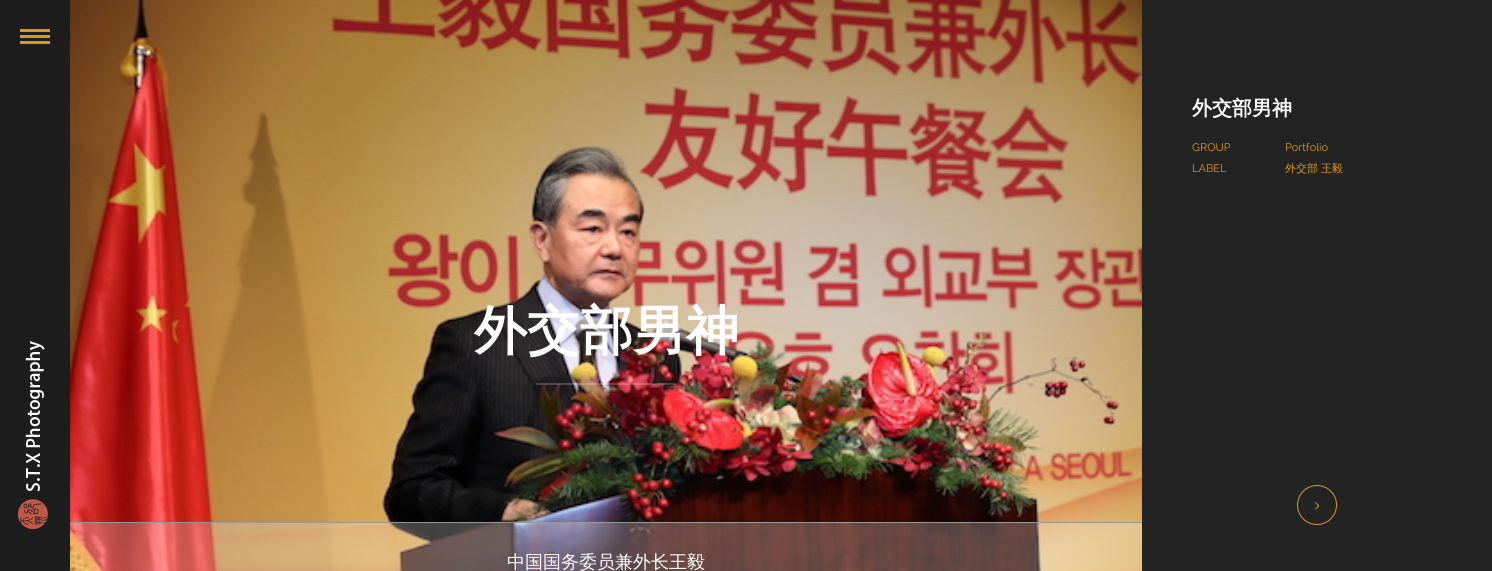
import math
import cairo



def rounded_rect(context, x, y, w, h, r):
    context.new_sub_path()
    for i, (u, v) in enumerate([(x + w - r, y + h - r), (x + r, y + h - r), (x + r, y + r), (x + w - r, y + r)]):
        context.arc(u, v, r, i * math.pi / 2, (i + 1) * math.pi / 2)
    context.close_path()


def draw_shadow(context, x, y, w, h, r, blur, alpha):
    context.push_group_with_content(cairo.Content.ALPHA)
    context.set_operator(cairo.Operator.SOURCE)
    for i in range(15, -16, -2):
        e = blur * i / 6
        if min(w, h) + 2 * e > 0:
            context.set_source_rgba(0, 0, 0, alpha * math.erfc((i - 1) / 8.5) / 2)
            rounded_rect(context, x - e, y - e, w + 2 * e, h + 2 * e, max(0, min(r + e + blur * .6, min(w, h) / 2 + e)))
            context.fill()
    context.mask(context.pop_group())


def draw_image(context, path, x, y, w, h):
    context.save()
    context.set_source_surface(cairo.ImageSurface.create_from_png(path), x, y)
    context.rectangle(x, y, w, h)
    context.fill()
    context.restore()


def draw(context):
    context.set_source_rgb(35 / 255, 35 / 255, 35 / 255)
    context.paint()
    draw_image(context, "images/3.png", 70, 0, 1072, 571)
    context.set_source_rgba(1, 1, 1, 0.25)
    context.rectangle(70, 523, 1072, 48)
    context.fill()
    context.set_source_rgb(152 / 255, 152 / 255, 152 / 255)
    context.rectangle(70, 522, 1072, 1)
    context.fill()
    context.set_source_rgb(0, 0, 0)
    draw_shadow(context, 5, 4, 62, 563, 0, 2, 1)
    context.set_source_rgb(29 / 255, 29 / 255, 29 / 255)
    context.rectangle(0, 0, 70, 571)
    context.fill()
    draw_image(context, "images/1.png", 18, 341, 30, 188)
    context.set_source_rgb(220 / 255, 151 / 255, 31 / 255)
    context.rectangle(20, 35, 30, 3)
    context.fill()
    context.rectangle(20, 29, 30, 3)
    context.fill()
    context.rectangle(20, 41, 30, 3)
    context.fill()
    context.arc(1317, 505, 19.5, 0, 2 * math.pi)
    context.set_line_width(1)
    context.stroke()
    draw_image(context, "images/2.png", 1315, 502, 5, 8)
    context.set_source_rgba(1, 1, 1, 0.2)
    context.rectangle(536, 383, 140, 2)
    context.fill()
    context.select_font_face("WenQuanYi Zen Hei", cairo.FontSlant.NORMAL, cairo.FontWeight.BOLD)
    context.set_font_size(20)
    context.set_source_rgb(1, 1, 1)
    context.move_to(1192, 115)
    context.show_text("外交部男神")
    context.select_font_face("Raleway")
    context.set_font_size(11)
    context.set_source_rgb(220 / 255, 151 / 255, 31 / 255)
    context.move_to(1192, 151)
    context.show_text("GROUP")
    context.move_to(1285, 151)
    context.show_text("Portfolio")
    context.move_to(1192, 172)
    context.show_text("LABEL")
    context.select_font_face("WenQuanYi Zen Hei Medium")
    context.move_to(1285, 172)
    context.show_text("外交部")
    context.move_to(1321, 172)
    context.show_text("王毅")
    context.select_font_face("WenQuanYi Zen Hei", cairo.FontSlant.NORMAL, cairo.FontWeight.BOLD)
    context.set_font_size(53)
    context.set_source_rgb(1, 1, 1)
    context.move_to(474, 349)
    context.show_text("外交部男神")
    context.select_font_face("WenQuanYi Zen Hei Medium")
    context.set_font_size(18)
    context.move_to(507, 568)
    context.show_text("中国国务委员兼外长王毅")


surface = cairo.ImageSurface(cairo.Format.RGB24, 1492, 571)
context = cairo.Context(surface)
options = cairo.FontOptions()
options.set_hint_metrics(cairo.HintMetrics.OFF)
options.set_hint_style(cairo.HintStyle.NONE)
context.set_font_options(options)
context.set_miter_limit(4)
draw(context)
surface.write_to_png("out.png")
